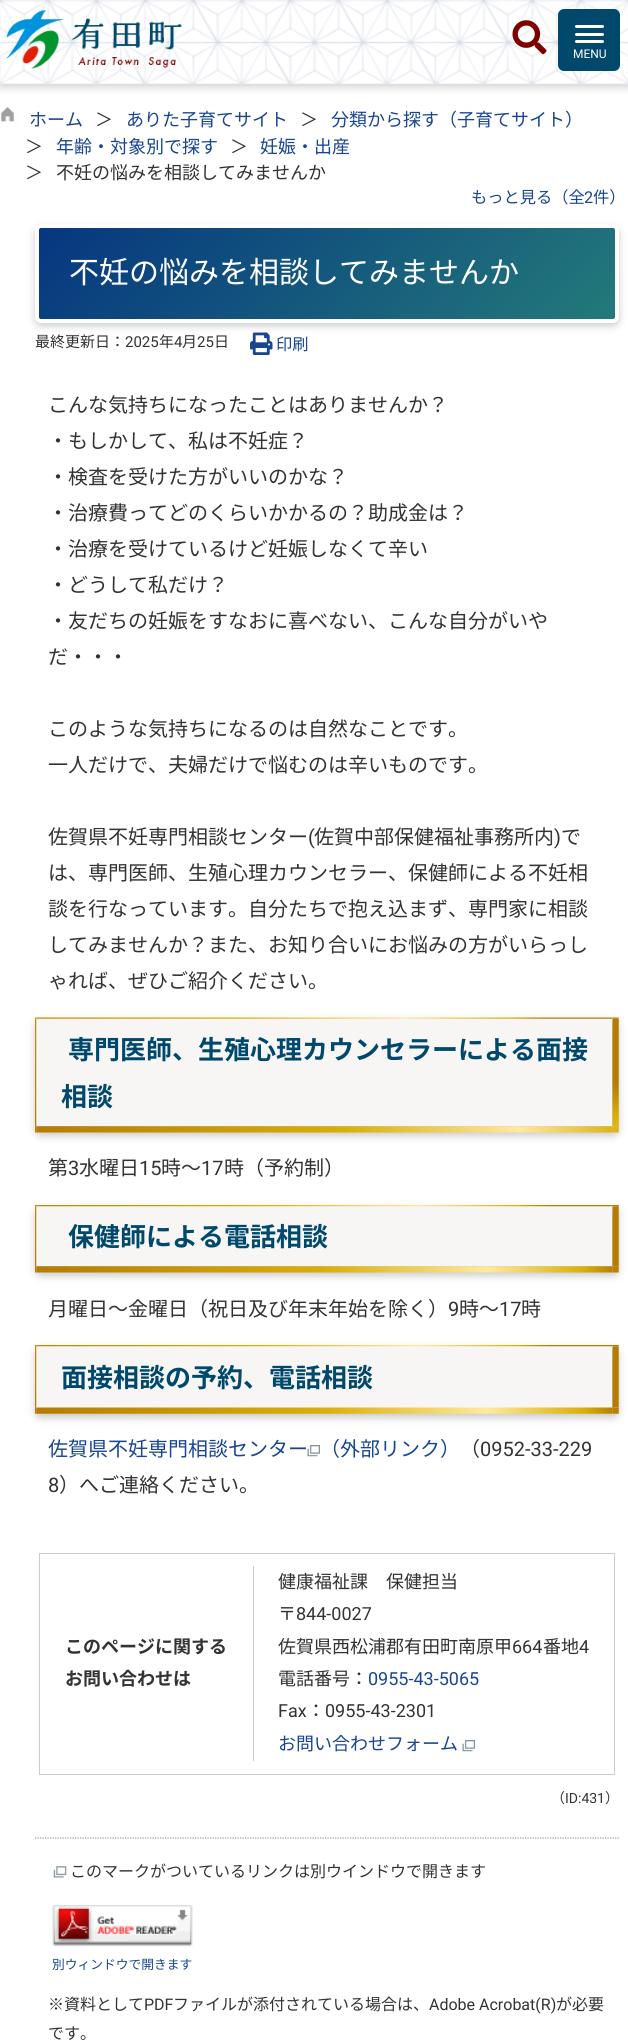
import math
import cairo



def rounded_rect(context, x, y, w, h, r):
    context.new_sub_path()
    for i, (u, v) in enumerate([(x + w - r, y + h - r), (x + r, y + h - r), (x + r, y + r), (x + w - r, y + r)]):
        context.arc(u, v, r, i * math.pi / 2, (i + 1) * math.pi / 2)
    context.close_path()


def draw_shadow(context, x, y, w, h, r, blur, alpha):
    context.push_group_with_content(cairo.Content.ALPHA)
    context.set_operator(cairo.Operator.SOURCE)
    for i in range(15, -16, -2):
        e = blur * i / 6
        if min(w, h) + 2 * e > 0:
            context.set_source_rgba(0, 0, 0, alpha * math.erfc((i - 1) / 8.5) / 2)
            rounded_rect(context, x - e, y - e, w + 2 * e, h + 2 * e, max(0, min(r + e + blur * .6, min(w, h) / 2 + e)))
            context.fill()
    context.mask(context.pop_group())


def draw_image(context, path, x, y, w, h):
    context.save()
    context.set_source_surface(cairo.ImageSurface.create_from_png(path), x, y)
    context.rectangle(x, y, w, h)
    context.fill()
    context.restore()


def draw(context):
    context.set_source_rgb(1, 1, 1)
    context.paint()
    draw_image(context, "images/1.png", 0, 0, 628, 84)
    context.save()
    context.set_fill_rule(cairo.FillRule.EVEN_ODD)
    context.new_path()
    context.move_to(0, 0)
    context.line_to(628, 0)
    context.line_to(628, 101)
    context.line_to(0, 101)
    context.close_path()
    context.move_to(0, 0)
    context.line_to(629, 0)
    context.line_to(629, 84)
    context.line_to(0, 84)
    context.close_path()
    context.clip()
    context.set_source_rgb(0, 0, 0)
    draw_shadow(context, 0, 4, 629, 84, 0, 4, 0.16)
    context.restore()
    draw_image(context, "images/2.png", 512, 20, 35, 35)
    draw_image(context, "images/3.png", 6, 10, 176, 59)
    context.set_source_rgb(0, 73 / 255, 109 / 255)
    rounded_rect(context, 558, 9, 62, 62, 6)
    context.fill()
    context.set_source_rgb(1, 1, 1)
    rounded_rect(context, 575, 25, 29, 3, 1.5)
    context.fill()
    rounded_rect(context, 575, 33, 29, 3, 1.5)
    context.fill()
    rounded_rect(context, 575, 40, 29, 3, 1.5)
    context.fill()
    draw_image(context, "images/4.png", 1, 107, 13, 15)
    draw_image(context, "images/5.png", 250, 332, 23, 23)
    context.set_source_rgb(0, 0, 0)
    draw_shadow(context, 35, 228, 584, 98, 6, 4, 0.2)
    gradient = cairo.LinearGradient(494, 440, 160, 106)
    gradient.add_color_stop_rgba(0, 35 / 255, 122 / 255, 122 / 255, 1)
    gradient.add_color_stop_rgba(1, 6 / 255, 54 / 255, 128 / 255, 1)
    context.set_source(gradient)
    context.rectangle(39, 228, 576, 91)
    context.fill()
    rounded_rect(context, 37, 226, 580, 95, 4)
    context.set_source_rgb(1, 1, 1)
    context.set_line_width(4)
    context.stroke()
    context.set_source_rgb(0, 0, 0)
    draw_shadow(context, 35, 1021, 584, 115, 6, 4, 0.2)
    context.set_source_rgb(247 / 255, 246 / 255, 245 / 255)
    context.new_path()
    context.move_to(41, 1019)
    context.line_to(612, 1019)
    context.line_to(612, 1126)
    context.line_to(36, 1126)
    context.line_to(36, 1024)
    context.curve_to(36, 1021, 38, 1019, 41, 1019)
    context.close_path()
    context.fill()
    draw_image(context, "images/6.png", 35, 1017, 584, 116)
    context.set_source_rgb(0, 0, 0)
    draw_shadow(context, 35, 1209, 584, 67, 6, 4, 0.2)
    context.set_source_rgb(247 / 255, 246 / 255, 245 / 255)
    context.new_path()
    context.move_to(41, 1206)
    context.line_to(612, 1206)
    context.line_to(612, 1266)
    context.line_to(36, 1266)
    context.line_to(36, 1211)
    context.curve_to(36, 1208, 38, 1206, 41, 1206)
    context.close_path()
    context.fill()
    draw_image(context, "images/7.png", 35, 1205, 584, 68)
    context.set_source_rgb(0, 0, 0)
    draw_shadow(context, 35, 1349, 584, 69, 6, 4, 0.2)
    context.set_source_rgb(247 / 255, 246 / 255, 245 / 255)
    context.new_path()
    context.move_to(41, 1346)
    context.line_to(612, 1346)
    context.line_to(612, 1408)
    context.line_to(36, 1408)
    context.line_to(36, 1351)
    context.curve_to(36, 1348, 38, 1346, 41, 1346)
    context.close_path()
    context.fill()
    draw_image(context, "images/8.png", 35, 1345, 584, 69)
    draw_image(context, "images/9.png", 307, 1445, 13, 12)
    context.rectangle(39.5, 1553.5, 575, 221)
    context.set_source_rgb(204 / 255, 204 / 255, 204 / 255)
    context.set_line_width(1)
    context.stroke()
    context.rectangle(253, 1566, 1, 195)
    context.fill()
    draw_image(context, "images/9.png", 462, 1740, 13, 12)
    context.new_path()
    context.move_to(35, 1838)
    context.line_to(619, 1838)
    context.set_source_rgb(153 / 255, 153 / 255, 153 / 255)
    context.set_line_width(1.2)
    context.set_dash([1.25, 1.25])
    context.stroke()
    draw_image(context, "images/10.png", 53, 1866, 14, 12)
    draw_image(context, "images/11.png", 52, 1905, 141, 42)
    context.select_font_face("Roboto")
    context.set_font_size(12)
    context.set_source_rgb(1, 1, 1)
    context.move_to(573, 58)
    context.show_text("MENU")
    context.select_font_face("Noto Sans JP")
    context.set_font_size(18)
    context.set_source_rgb(25 / 255, 69 / 255, 147 / 255)
    context.move_to(29, 126)
    context.show_text("ホーム")
    context.set_source_rgb(51 / 255, 51 / 255, 51 / 255)
    context.move_to(95, 126)
    context.show_text("＞")
    context.set_source_rgb(25 / 255, 69 / 255, 147 / 255)
    context.move_to(126, 126)
    context.show_text("ありた子育てサイト")
    context.set_source_rgb(51 / 255, 51 / 255, 51 / 255)
    context.move_to(300, 126)
    context.show_text("＞")
    context.set_source_rgb(25 / 255, 69 / 255, 147 / 255)
    context.move_to(331, 126)
    context.show_text("分類から探す（子育てサイト）")
    context.set_source_rgb(51 / 255, 51 / 255, 51 / 255)
    context.move_to(25, 153)
    context.show_text("＞")
    context.set_source_rgb(25 / 255, 69 / 255, 147 / 255)
    context.move_to(56, 153)
    context.show_text("年齢・対象別で探す")
    context.set_source_rgb(51 / 255, 51 / 255, 51 / 255)
    context.move_to(230, 153)
    context.show_text("＞")
    context.set_source_rgb(25 / 255, 69 / 255, 147 / 255)
    context.move_to(260, 153)
    context.show_text("妊娠・出産")
    context.set_source_rgb(51 / 255, 51 / 255, 51 / 255)
    context.move_to(25, 179)
    context.show_text("＞")
    context.move_to(56, 179)
    context.show_text("不妊の悩みを相談してみませんか")
    context.set_font_size(16.25)
    context.set_source_rgb(25 / 255, 69 / 255, 147 / 255)
    context.move_to(471, 203)
    context.show_text("もっと見る（全")
    context.select_font_face("Roboto")
    context.move_to(584, 203)
    context.show_text("2")
    context.select_font_face("Noto Sans JP")
    context.move_to(593, 203)
    context.show_text("件）")
    context.set_font_size(30)
    context.set_source_rgb(1, 1, 1)
    context.move_to(69, 283)
    context.show_text("不妊の悩みを相談してみませんか")
    context.set_font_size(15)
    context.set_source_rgb(51 / 255, 51 / 255, 51 / 255)
    context.move_to(35, 347)
    context.show_text("最終更新日：")
    context.select_font_face("Roboto")
    context.move_to(125, 347)
    context.show_text("2025")
    context.select_font_face("Noto Sans JP")
    context.move_to(159, 347)
    context.show_text("年")
    context.select_font_face("Roboto")
    context.move_to(174, 347)
    context.show_text("4")
    context.select_font_face("Noto Sans JP")
    context.move_to(182, 347)
    context.show_text("月")
    context.select_font_face("Roboto")
    context.move_to(197, 347)
    context.show_text("25")
    context.select_font_face("Noto Sans JP")
    context.move_to(214, 347)
    context.show_text("日")
    context.set_font_size(16.25)
    context.set_source_rgb(25 / 255, 69 / 255, 147 / 255)
    context.move_to(276, 350)
    context.show_text("印刷")
    context.set_font_size(20)
    context.set_source_rgb(51 / 255, 51 / 255, 51 / 255)
    context.move_to(48, 412)
    context.show_text("こんな気持ちになったことはありませんか？")
    context.move_to(48, 448)
    context.show_text("・もしかして、私は不妊症？")
    context.move_to(48, 484)
    context.show_text("・検査を受けた方がいいのかな？")
    context.move_to(48, 520)
    context.show_text("・治療費ってどのくらいかかるの？助成金は？")
    context.move_to(48, 556)
    context.show_text("・治療を受けているけど妊娠しなくて辛い")
    context.move_to(48, 592)
    context.show_text("・どうして私だけ？")
    context.move_to(48, 628)
    context.show_text("・友だちの妊娠をすなおに喜べない、こんな自分がいや")
    context.move_to(48, 664)
    context.show_text("だ・・・")
    context.move_to(48, 736)
    context.show_text("このような気持ちになるのは自然なことです。")
    context.move_to(48, 772)
    context.show_text("一人だけで、夫婦だけで悩むのは辛いものです。")
    context.move_to(48, 844)
    context.show_text("佐賀県不妊専門相談センター")
    context.select_font_face("Roboto")
    context.move_to(308, 844)
    context.show_text("(")
    context.select_font_face("Noto Sans JP")
    context.move_to(314, 844)
    context.show_text("佐賀中部保健福祉事務所内")
    context.select_font_face("Roboto")
    context.move_to(554, 844)
    context.show_text(")")
    context.select_font_face("Noto Sans JP")
    context.move_to(561, 844)
    context.show_text("で")
    context.move_to(48, 880)
    context.show_text("は、専門医師、生殖心理カウンセラー、保健師による不妊相")
    context.move_to(48, 916)
    context.show_text("談を行なっています。自分たちで抱え込まず、専門家に相談")
    context.move_to(48, 952)
    context.show_text("してみませんか？また、お知り合いにお悩みの方がいらっし")
    context.move_to(48, 988)
    context.show_text("ゃれば、ぜひご紹介ください。")
    context.select_font_face("Noto Sans JP", cairo.FontSlant.NORMAL, cairo.FontWeight.BOLD)
    context.set_font_size(26)
    context.set_source_rgb(0, 73 / 255, 109 / 255)
    context.move_to(68, 1059)
    context.show_text("専門医師、生殖心理カウンセラーによる面接")
    context.move_to(61, 1106)
    context.show_text("相談")
    context.select_font_face("Noto Sans JP")
    context.set_font_size(20)
    context.set_source_rgb(51 / 255, 51 / 255, 51 / 255)
    context.move_to(48, 1175)
    context.show_text("第")
    context.select_font_face("Roboto")
    context.move_to(68, 1175)
    context.show_text("3")
    context.select_font_face("Noto Sans JP")
    context.move_to(79, 1175)
    context.show_text("水曜日")
    context.select_font_face("Roboto")
    context.move_to(139, 1175)
    context.show_text("15")
    context.select_font_face("Noto Sans JP")
    context.move_to(161, 1175)
    context.show_text("時～")
    context.select_font_face("Roboto")
    context.move_to(201, 1175)
    context.show_text("17")
    context.select_font_face("Noto Sans JP")
    context.move_to(224, 1175)
    context.show_text("時（予約制）")
    context.select_font_face("Noto Sans JP", cairo.FontSlant.NORMAL, cairo.FontWeight.BOLD)
    context.set_font_size(26)
    context.set_source_rgb(0, 73 / 255, 109 / 255)
    context.move_to(68, 1246)
    context.show_text("保健師による電話相談")
    context.select_font_face("Noto Sans JP")
    context.set_font_size(20)
    context.set_source_rgb(51 / 255, 51 / 255, 51 / 255)
    context.move_to(48, 1316)
    context.show_text("月曜日～金曜日（祝日及び年末年始を除く）")
    context.select_font_face("Roboto")
    context.move_to(448, 1316)
    context.show_text("9")
    context.select_font_face("Noto Sans JP")
    context.move_to(459, 1316)
    context.show_text("時～")
    context.select_font_face("Roboto")
    context.move_to(499, 1316)
    context.show_text("17")
    context.select_font_face("Noto Sans JP")
    context.move_to(521, 1316)
    context.show_text("時")
    context.select_font_face("Noto Sans JP", cairo.FontSlant.NORMAL, cairo.FontWeight.BOLD)
    context.set_font_size(26)
    context.set_source_rgb(0, 73 / 255, 109 / 255)
    context.move_to(61, 1387)
    context.show_text("面接相談の予約、電話相談")
    context.select_font_face("Noto Sans JP")
    context.set_font_size(20)
    context.set_source_rgb(25 / 255, 69 / 255, 147 / 255)
    context.move_to(48, 1456)
    context.show_text("佐賀県不妊専門相談センター")
    context.move_to(320, 1456)
    context.show_text("（外部リンク）")
    context.set_source_rgb(51 / 255, 51 / 255, 51 / 255)
    context.move_to(460, 1456)
    context.show_text("（")
    context.select_font_face("Roboto")
    context.move_to(480, 1456)
    context.show_text("0952-33-229")
    context.move_to(48, 1492)
    context.show_text("8")
    context.select_font_face("Noto Sans JP")
    context.move_to(59, 1492)
    context.show_text("）へご連絡ください。")
    context.select_font_face("Noto Sans JP", cairo.FontSlant.NORMAL, cairo.FontWeight.BOLD)
    context.set_font_size(18)
    context.move_to(65, 1653)
    context.show_text("このページに関する")
    context.move_to(65, 1685)
    context.show_text("お問い合わせは")
    context.select_font_face("Noto Sans JP")
    context.move_to(278, 1588)
    context.show_text("健康福祉課　保健担当")
    context.move_to(278, 1620)
    context.show_text("〒")
    context.select_font_face("Roboto")
    context.move_to(296, 1620)
    context.show_text("844-0027")
    context.select_font_face("Noto Sans JP")
    context.move_to(278, 1653)
    context.show_text("佐賀県西松浦郡有田町南原甲")
    context.select_font_face("Roboto")
    context.move_to(512, 1653)
    context.show_text("664")
    context.select_font_face("Noto Sans JP")
    context.move_to(543, 1653)
    context.show_text("番地")
    context.select_font_face("Roboto")
    context.move_to(579, 1653)
    context.show_text("4")
    context.select_font_face("Noto Sans JP")
    context.move_to(278, 1685)
    context.show_text("電話番号：")
    context.select_font_face("Roboto")
    context.set_source_rgb(25 / 255, 69 / 255, 147 / 255)
    context.move_to(368, 1685)
    context.show_text("0955-43-5065")
    context.set_source_rgb(51 / 255, 51 / 255, 51 / 255)
    context.move_to(278, 1717)
    context.show_text("Fax")
    context.select_font_face("Noto Sans JP")
    context.move_to(307, 1717)
    context.show_text("：")
    context.select_font_face("Roboto")
    context.move_to(325, 1717)
    context.show_text("0955-43-2301")
    context.select_font_face("Noto Sans JP")
    context.set_source_rgb(25 / 255, 69 / 255, 147 / 255)
    context.move_to(278, 1750)
    context.show_text("お問い合わせフォーム")
    context.set_font_size(14)
    context.set_source_rgb(51 / 255, 51 / 255, 51 / 255)
    context.move_to(551, 1803)
    context.show_text("（")
    context.select_font_face("Roboto")
    context.move_to(565, 1803)
    context.show_text("ID:431")
    context.select_font_face("Noto Sans JP")
    context.move_to(605, 1803)
    context.show_text("）")
    context.set_font_size(16)
    context.move_to(70, 1877)
    context.show_text("このマークがついているリンクは別ウインドウで開きます")
    context.set_font_size(12.75)
    context.set_source_rgb(25 / 255, 69 / 255, 147 / 255)
    context.move_to(52, 1969)
    context.show_text("別ウィンドウで開きます")
    context.set_font_size(16)
    context.set_source_rgb(51 / 255, 51 / 255, 51 / 255)
    context.move_to(48, 2010)
    context.show_text("※資料として")
    context.select_font_face("Roboto")
    context.move_to(144, 2010)
    context.show_text("PDF")
    context.select_font_face("Noto Sans JP")
    context.move_to(173, 2010)
    context.show_text("ファイルが添付されている場合は、")
    context.select_font_face("Roboto")
    context.move_to(429, 2010)
    context.show_text("Adobe Acrobat(R)")
    context.select_font_face("Noto Sans JP")
    context.move_to(556, 2010)
    context.show_text("が必要")
    context.move_to(48, 2039)
    context.show_text("です。")


surface = cairo.ImageSurface(cairo.Format.RGB24, 628, 2042)
context = cairo.Context(surface)
options = cairo.FontOptions()
options.set_hint_metrics(cairo.HintMetrics.OFF)
options.set_hint_style(cairo.HintStyle.NONE)
context.set_font_options(options)
context.set_miter_limit(4)
draw(context)
surface.write_to_png("out.png")
